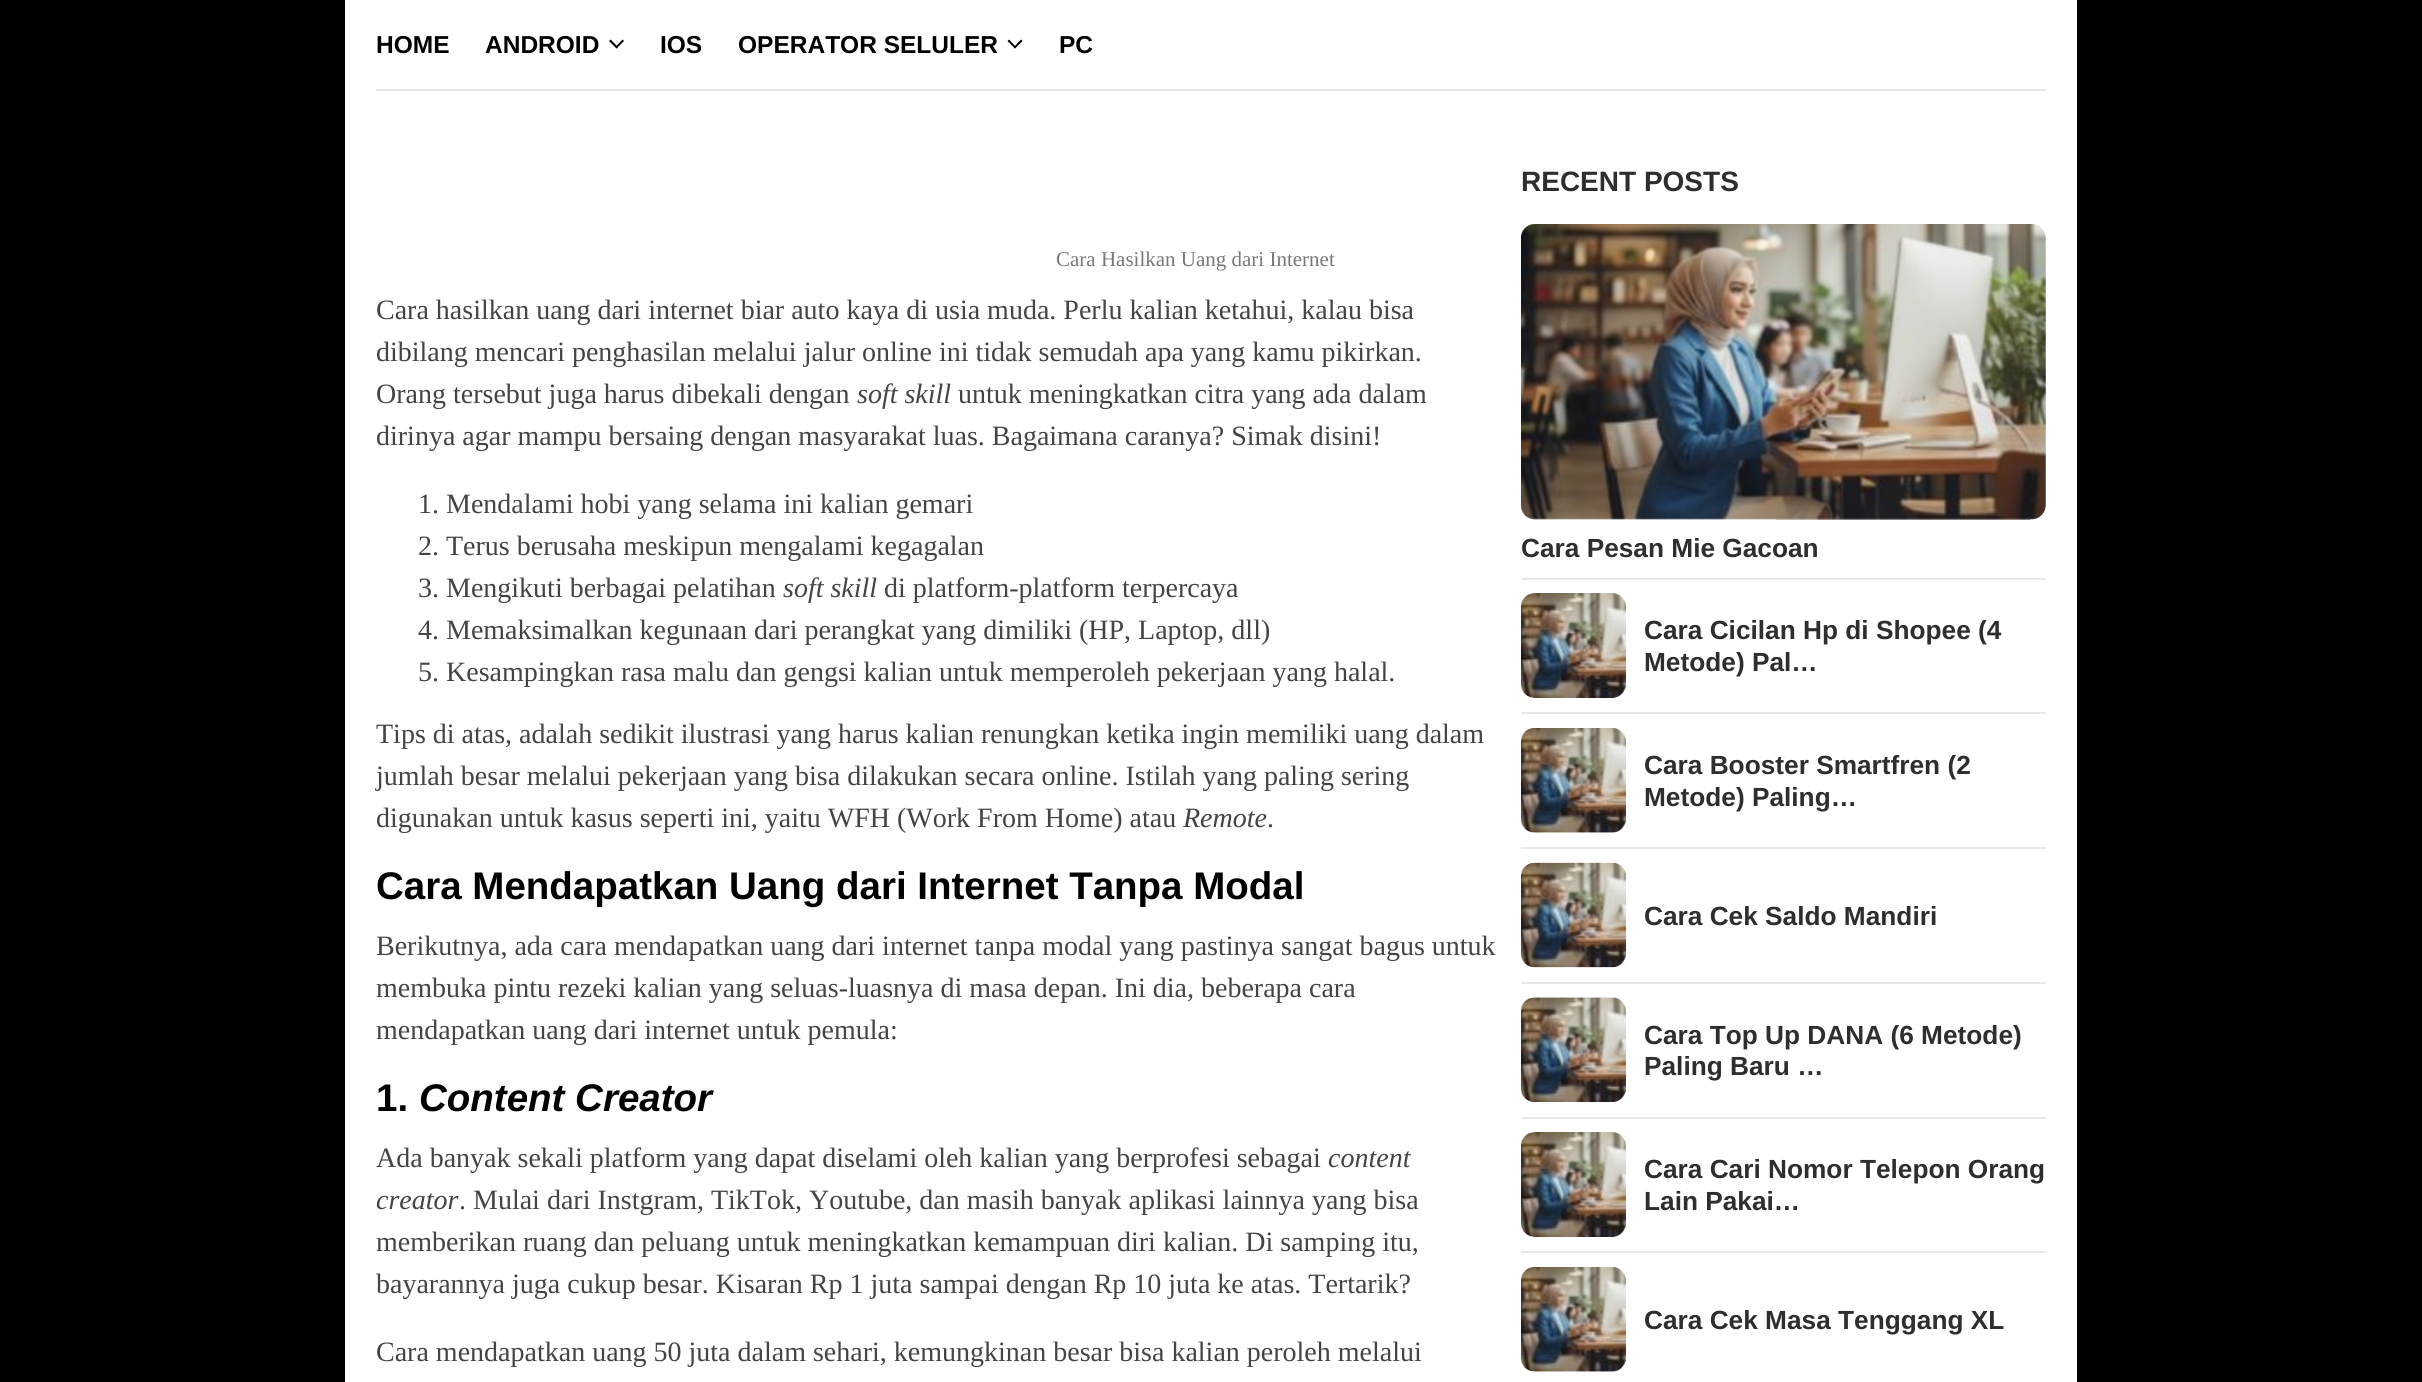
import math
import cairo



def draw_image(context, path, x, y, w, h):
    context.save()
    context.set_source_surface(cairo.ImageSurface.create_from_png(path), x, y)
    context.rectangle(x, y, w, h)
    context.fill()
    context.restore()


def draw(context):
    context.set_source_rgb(0, 0, 0)
    context.paint()
    context.set_source_rgb(1, 1, 1)
    context.rectangle(345, 0, 1732, 1382)
    context.fill()
    context.set_source_rgb(230 / 255, 230 / 255, 230 / 255)
    context.new_path()
    context.move_to(376, 2)
    context.line_to(376, 91)
    context.line_to(2046, 91)
    context.line_to(2046, 2)
    context.line_to(2046, 89)
    context.line_to(376, 89)
    context.close_path()
    context.fill()
    context.set_source_rgb(0, 0, 0)
    context.new_path()
    context.move_to(622.5, 39.5)
    context.line_to(624, 41)
    context.line_to(616.5, 48.5)
    context.line_to(615.5, 47)
    context.close_path()
    context.fill()
    context.new_path()
    context.move_to(610.5, 39.5)
    context.line_to(618, 47)
    context.line_to(616.5, 48.5)
    context.line_to(609, 41)
    context.close_path()
    context.fill()
    context.new_path()
    context.move_to(1021, 39.5)
    context.line_to(1022.5, 41)
    context.line_to(1015, 48.5)
    context.line_to(1014, 47)
    context.close_path()
    context.fill()
    context.new_path()
    context.move_to(1009, 39.5)
    context.line_to(1016, 47)
    context.line_to(1015, 48.5)
    context.line_to(1007.5, 41)
    context.close_path()
    context.fill()
    context.set_source_rgb(233 / 255, 233 / 255, 233 / 255)
    context.rectangle(1521, 578, 525, 2)
    context.fill()
    draw_image(context, "images/1.png", 1521, 224, 525, 296)
    context.rectangle(1521, 712, 525, 2)
    context.fill()
    draw_image(context, "images/2.png", 1521, 593, 105, 105)
    context.rectangle(1521, 847, 525, 2)
    context.fill()
    draw_image(context, "images/3.png", 1521, 728, 105, 105)
    context.rectangle(1521, 982, 525, 2)
    context.fill()
    draw_image(context, "images/4.png", 1521, 862, 105, 106)
    context.rectangle(1521, 1117, 525, 2)
    context.fill()
    draw_image(context, "images/5.png", 1521, 997, 105, 105)
    context.rectangle(1521, 1251, 525, 2)
    context.fill()
    draw_image(context, "images/2.png", 1521, 1132, 105, 105)
    draw_image(context, "images/3.png", 1521, 1267, 105, 105)
    context.select_font_face("Liberation Sans", cairo.FontSlant.NORMAL, cairo.FontWeight.BOLD)
    context.set_font_size(24.5)
    context.set_source_rgb(0, 0, 0)
    context.move_to(376, 53)
    context.show_text("HOME")
    context.move_to(485, 53)
    context.show_text("ANDROID")
    context.move_to(660, 53)
    context.show_text("IOS")
    context.move_to(738, 53)
    context.show_text("OPERATOR SELULER")
    context.move_to(1059, 53)
    context.show_text("PC")
    context.select_font_face("Liberation Serif")
    context.set_font_size(21)
    context.set_source_rgb(120 / 255, 120 / 255, 120 / 255)
    context.move_to(1056, 266)
    context.show_text("Cara Hasilkan Uang dari Internet")
    context.set_font_size(28)
    context.set_source_rgb(68 / 255, 68 / 255, 68 / 255)
    context.move_to(376, 319)
    context.show_text("Cara hasilkan uang dari internet biar auto kaya di usia muda. Perlu kalian ketahui, kalau bisa")
    context.move_to(376, 361)
    context.show_text("dibilang mencari penghasilan melalui jalur online ini tidak semudah apa yang kamu pikirkan.")
    context.move_to(376, 403)
    context.show_text("Orang tersebut juga harus dibekali dengan")
    context.select_font_face("Liberation Serif", cairo.FontSlant.ITALIC)
    context.move_to(857, 403)
    context.show_text("soft skill")
    context.select_font_face("Liberation Serif")
    context.move_to(958, 403)
    context.show_text("untuk meningkatkan citra yang ada dalam")
    context.move_to(376, 445)
    context.show_text("dirinya agar mampu bersaing dengan masyarakat luas. Bagaimana caranya? Simak disini!")
    context.move_to(418, 513)
    context.show_text("1. Mendalami hobi yang selama ini kalian gemari")
    context.move_to(418, 555)
    context.show_text("2. Terus berusaha meskipun mengalami kegagalan")
    context.move_to(418, 597)
    context.show_text("3. Mengikuti berbagai pelatihan")
    context.select_font_face("Liberation Serif", cairo.FontSlant.ITALIC)
    context.move_to(783, 597)
    context.show_text("soft skill")
    context.select_font_face("Liberation Serif")
    context.move_to(884, 597)
    context.show_text("di platform-platform terpercaya")
    context.move_to(418, 639)
    context.show_text("4. Memaksimalkan kegunaan dari perangkat yang dimiliki (HP, Laptop, dll)")
    context.move_to(418, 681)
    context.show_text("5. Kesampingkan rasa malu dan gengsi kalian untuk memperoleh pekerjaan yang halal.")
    context.move_to(376, 743)
    context.show_text("Tips di atas, adalah sedikit ilustrasi yang harus kalian renungkan ketika ingin memiliki uang dalam")
    context.move_to(376, 785)
    context.show_text("jumlah besar melalui pekerjaan yang bisa dilakukan secara online. Istilah yang paling sering")
    context.move_to(376, 827)
    context.show_text("digunakan untuk kasus seperti ini, yaitu WFH (Work From Home) atau")
    context.select_font_face("Liberation Serif", cairo.FontSlant.ITALIC)
    context.move_to(1183, 827)
    context.show_text("Remote")
    context.select_font_face("Liberation Serif")
    context.move_to(1267, 827)
    context.show_text(".")
    context.select_font_face("Liberation Sans", cairo.FontSlant.NORMAL, cairo.FontWeight.BOLD)
    context.set_font_size(38.5)
    context.set_source_rgb(0, 0, 0)
    context.move_to(376, 899)
    context.show_text("Cara Mendapatkan Uang dari Internet Tanpa Modal")
    context.select_font_face("Liberation Serif")
    context.set_font_size(28)
    context.set_source_rgb(68 / 255, 68 / 255, 68 / 255)
    context.move_to(376, 955)
    context.show_text("Berikutnya, ada cara mendapatkan uang dari internet tanpa modal yang pastinya sangat bagus untuk")
    context.move_to(376, 997)
    context.show_text("membuka pintu rezeki kalian yang seluas-luasnya di masa depan. Ini dia, beberapa cara")
    context.move_to(376, 1039)
    context.show_text("mendapatkan uang dari internet untuk pemula:")
    context.select_font_face("Liberation Sans", cairo.FontSlant.NORMAL, cairo.FontWeight.BOLD)
    context.set_font_size(38.5)
    context.set_source_rgb(0, 0, 0)
    context.move_to(376, 1111)
    context.show_text("1.")
    context.select_font_face("Liberation Sans", cairo.FontSlant.ITALIC, cairo.FontWeight.BOLD)
    context.move_to(419, 1111)
    context.show_text("Content Creator")
    context.select_font_face("Liberation Serif")
    context.set_font_size(28)
    context.set_source_rgb(68 / 255, 68 / 255, 68 / 255)
    context.move_to(376, 1167)
    context.show_text("Ada banyak sekali platform yang dapat diselami oleh kalian yang berprofesi sebagai")
    context.select_font_face("Liberation Serif", cairo.FontSlant.ITALIC)
    context.move_to(1328, 1167)
    context.show_text("content")
    context.move_to(376, 1209)
    context.show_text("creator")
    context.select_font_face("Liberation Serif")
    context.move_to(459, 1209)
    context.show_text(". Mulai dari Instgram, TikTok, Youtube, dan masih banyak aplikasi lainnya yang bisa")
    context.move_to(376, 1251)
    context.show_text("memberikan ruang dan peluang untuk meningkatkan kemampuan diri kalian. Di samping itu,")
    context.move_to(376, 1293)
    context.show_text("bayarannya juga cukup besar. Kisaran Rp 1 juta sampai dengan Rp 10 juta ke atas. Tertarik?")
    context.move_to(376, 1361)
    context.show_text("Cara mendapatkan uang 50 juta dalam sehari, kemungkinan besar bisa kalian peroleh melalui")
    context.select_font_face("Liberation Sans", cairo.FontSlant.NORMAL, cairo.FontWeight.BOLD)
    context.set_source_rgb(46 / 255, 46 / 255, 46 / 255)
    context.move_to(1521, 191)
    context.show_text("RECENT POSTS")
    context.set_font_size(26.25)
    context.move_to(1521, 557)
    context.show_text("Cara Pesan Mie Gacoan")
    context.move_to(1644, 639)
    context.show_text("Cara Cicilan Hp di Shopee (4")
    context.move_to(1644, 671)
    context.show_text("Metode) Pal…")
    context.move_to(1644, 774)
    context.show_text("Cara Booster Smartfren (2")
    context.move_to(1644, 806)
    context.show_text("Metode) Paling…")
    context.move_to(1644, 925)
    context.show_text("Cara Cek Saldo Mandiri")
    context.move_to(1644, 1044)
    context.show_text("Cara Top Up DANA (6 Metode)")
    context.move_to(1644, 1075)
    context.show_text("Paling Baru …")
    context.move_to(1644, 1178)
    context.show_text("Cara Cari Nomor Telepon Orang")
    context.move_to(1644, 1210)
    context.show_text("Lain Pakai…")
    context.move_to(1644, 1329)
    context.show_text("Cara Cek Masa Tenggang XL")


surface = cairo.ImageSurface(cairo.Format.RGB24, 2422, 1382)
context = cairo.Context(surface)
options = cairo.FontOptions()
options.set_hint_metrics(cairo.HintMetrics.OFF)
options.set_hint_style(cairo.HintStyle.NONE)
context.set_font_options(options)
context.set_miter_limit(4)
draw(context)
surface.write_to_png("out.png")
